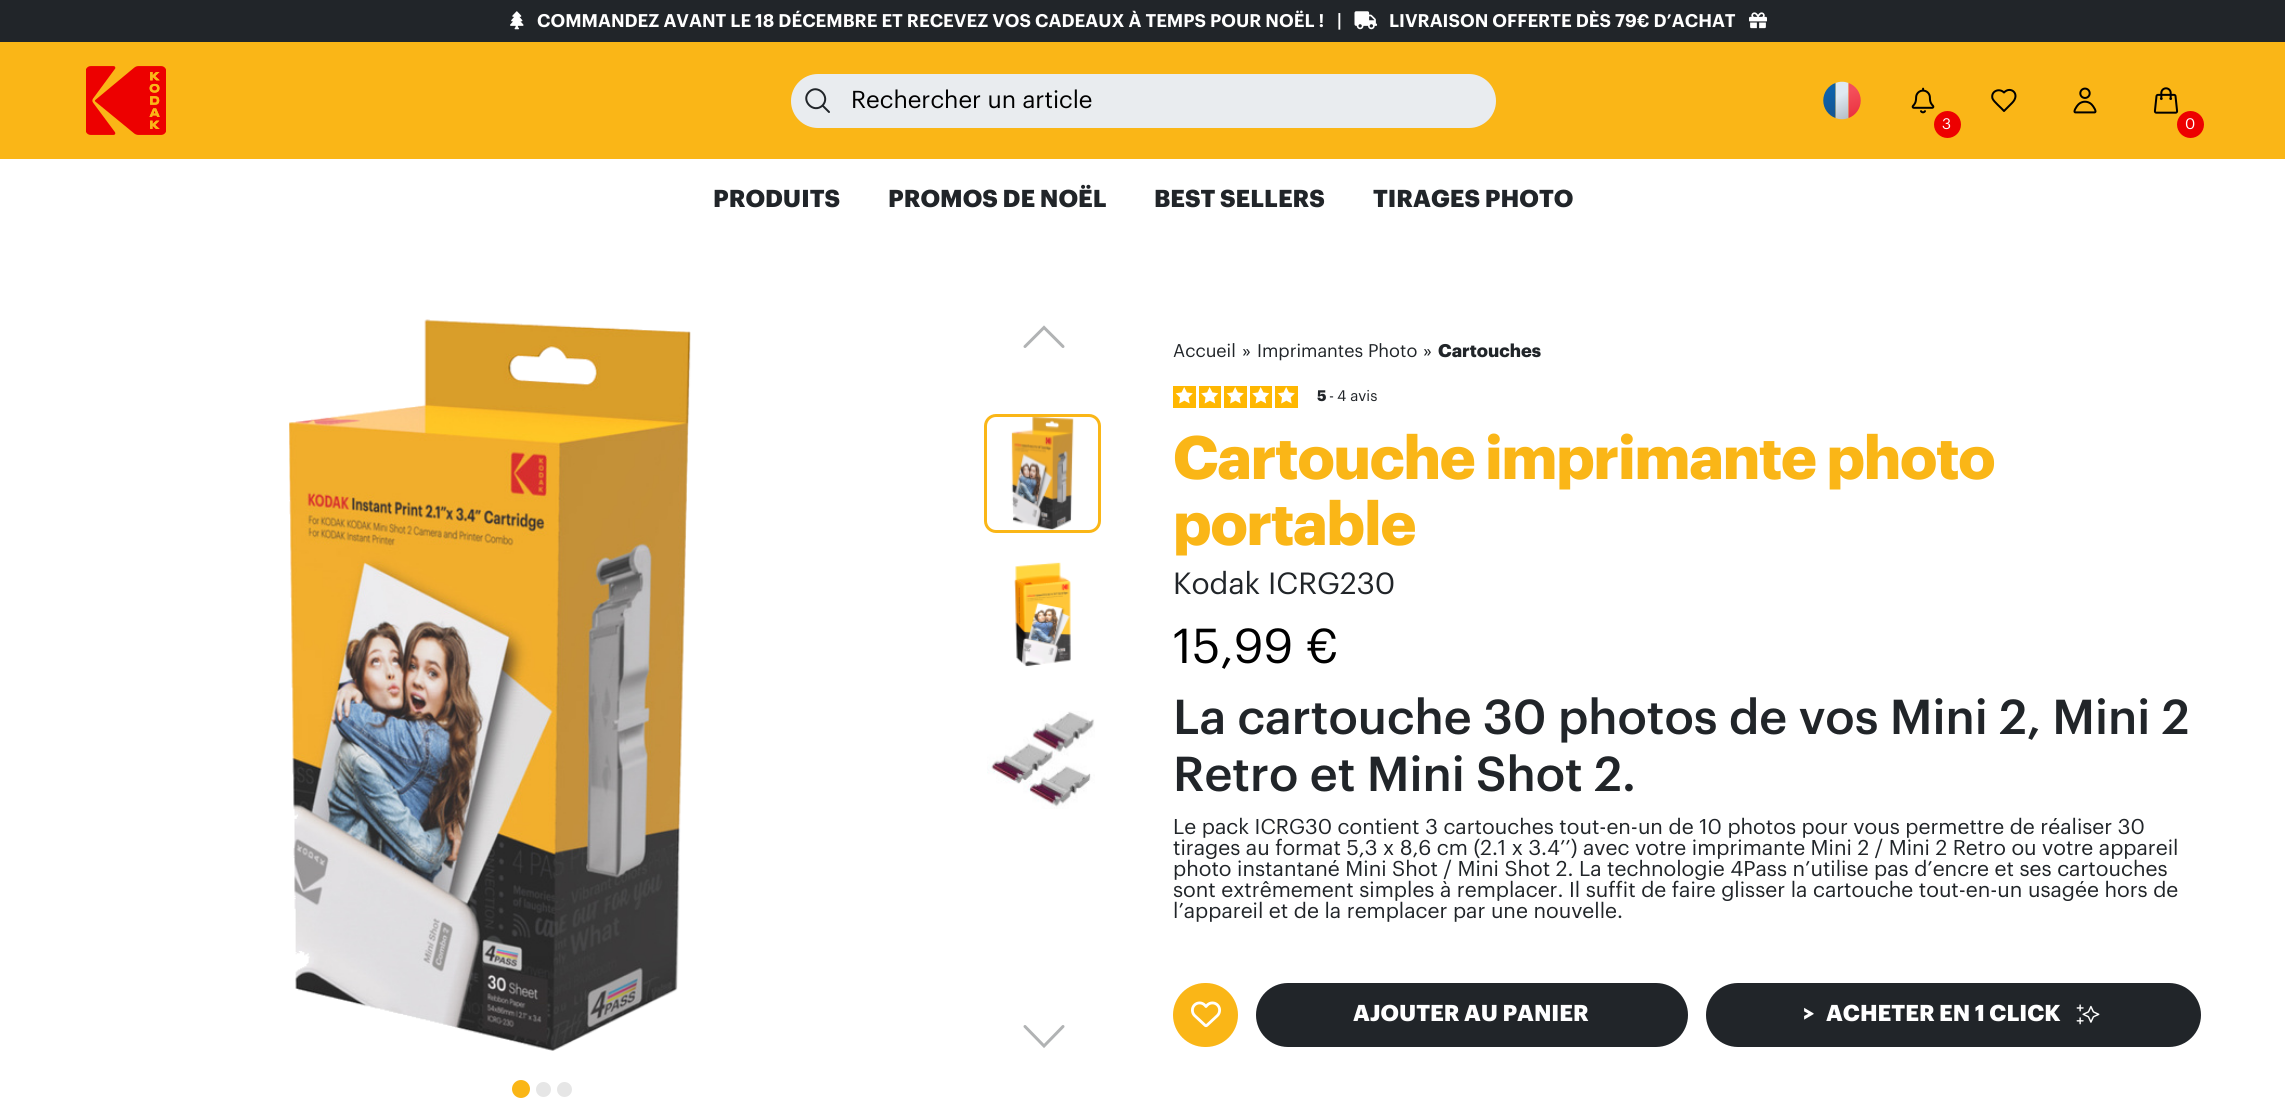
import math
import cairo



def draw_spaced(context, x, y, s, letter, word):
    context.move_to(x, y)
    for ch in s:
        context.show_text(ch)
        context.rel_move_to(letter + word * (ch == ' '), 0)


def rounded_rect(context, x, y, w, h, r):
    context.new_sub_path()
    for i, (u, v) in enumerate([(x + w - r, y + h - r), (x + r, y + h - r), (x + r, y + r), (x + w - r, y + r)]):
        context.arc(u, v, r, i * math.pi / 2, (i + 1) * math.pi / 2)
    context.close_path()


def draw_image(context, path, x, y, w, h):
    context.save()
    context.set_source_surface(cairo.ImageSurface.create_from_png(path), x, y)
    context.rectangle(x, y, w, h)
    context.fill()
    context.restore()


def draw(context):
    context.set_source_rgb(1, 1, 1)
    context.paint()
    context.set_source_rgb(33 / 255, 37 / 255, 41 / 255)
    context.rectangle(0, 0, 2285, 42)
    context.fill()
    draw_image(context, "images/1.png", 510, 11, 14, 19)
    draw_image(context, "images/2.png", 1354, 11, 23, 19)
    draw_image(context, "images/3.png", 1749, 12, 18, 17)
    context.set_source_rgb(250 / 255, 182 / 255, 23 / 255)
    context.rectangle(0, 42, 2285, 117)
    context.fill()
    draw_image(context, "images/4.png", 86, 66, 80, 69)
    context.set_source_rgb(233 / 255, 236 / 255, 239 / 255)
    rounded_rect(context, 791, 74, 705, 54, 27)
    context.fill()
    context.new_path()
    context.move_to(829, 112)
    context.line_to(822.5, 105.5)
    context.move_to(822.5, 105.5)
    context.curve_to(831, 96.5, 817.5, 83.5, 809, 92)
    context.curve_to(800.5, 100.5, 813.5, 114, 822.5, 105.5)
    context.close_path()
    context.set_source_rgb(33 / 255, 37 / 255, 41 / 255)
    context.set_line_cap(cairo.LineCap.ROUND)
    context.set_line_join(cairo.LineJoin.ROUND)
    context.stroke()
    draw_image(context, "images/5.png", 1823, 81, 38, 39)
    context.new_path()
    context.move_to(2012, 103)
    context.curve_to(2021, 94, 2010.5, 85.5, 2004, 92.5)
    context.curve_to(1999, 87.5, 1990.5, 91.5, 1992.5, 98.5)
    context.curve_to(1994, 102, 2001.5, 108, 2004, 111)
    context.close_path()
    context.set_source_rgb(0, 0, 0)
    context.stroke()
    draw_image(context, "images/6.png", 2073, 87, 24, 27)
    draw_image(context, "images/7.png", 1911, 87, 24, 27)
    context.set_source_rgb(237 / 255, 0, 0)
    context.arc(1947.5, 124.5, 13.5, 0, 2 * math.pi)
    context.fill()
    draw_image(context, "images/8.png", 2153, 87, 26, 27)
    context.arc(2190.5, 124.5, 13.5, 0, 2 * math.pi)
    context.fill()
    draw_image(context, "images/9.png", 289, 319, 402, 732)
    context.new_path()
    context.move_to(1025, 346.5)
    context.line_to(1044, 327.5)
    context.line_to(1063, 346.5)
    context.set_source_rgb(177 / 255, 179 / 255, 180 / 255)
    context.set_line_width(3)
    context.set_line_join(cairo.LineJoin.MITER)
    context.stroke()
    rounded_rect(context, 985.5, 415.5, 114, 116, 10.5)
    context.set_source_rgb(250 / 255, 182 / 255, 23 / 255)
    context.set_line_cap(cairo.LineCap.BUTT)
    context.stroke()
    draw_image(context, "images/10.png", 1011, 417, 63, 113)
    draw_image(context, "images/11.png", 1014, 562, 57, 105)
    draw_image(context, "images/12.png", 987, 711, 108, 98)
    context.new_path()
    context.move_to(1025, 1026.5)
    context.line_to(1044, 1046)
    context.line_to(1063, 1026.5)
    context.set_source_rgb(177 / 255, 179 / 255, 180 / 255)
    context.set_line_cap(cairo.LineCap.ROUND)
    context.stroke()
    context.set_source_rgb(250 / 255, 182 / 255, 22 / 255)
    context.arc(521, 1089, 9, 0, 2 * math.pi)
    context.fill()
    context.set_source_rgb(230 / 255, 230 / 255, 230 / 255)
    context.arc(543.5, 1089.5, 7.5, 0, 2 * math.pi)
    context.fill()
    context.arc(564.5, 1089.5, 7.5, 0, 2 * math.pi)
    context.fill()
    context.set_source_rgb(1, 183 / 255, 1 / 255)
    context.rectangle(1173, 386, 23, 22)
    context.fill()
    draw_image(context, "images/13.png", 1175, 387, 18, 17)
    context.rectangle(1199, 386, 22, 22)
    context.fill()
    draw_image(context, "images/14.png", 1201, 387, 18, 17)
    context.rectangle(1224, 386, 23, 22)
    context.fill()
    draw_image(context, "images/13.png", 1226, 387, 18, 17)
    context.rectangle(1250, 386, 22, 22)
    context.fill()
    draw_image(context, "images/14.png", 1252, 387, 18, 17)
    context.rectangle(1275, 386, 23, 22)
    context.fill()
    draw_image(context, "images/13.png", 1277, 387, 18, 17)
    context.set_source_rgb(250 / 255, 182 / 255, 23 / 255)
    rounded_rect(context, 1173, 983, 65, 64, 32)
    context.fill()
    draw_image(context, "images/15.png", 1191, 1001, 30, 27)
    context.set_source_rgb(33 / 255, 37 / 255, 41 / 255)
    rounded_rect(context, 1256, 983, 432, 64, 32)
    context.fill()
    rounded_rect(context, 1706, 983, 495, 64, 32)
    context.fill()
    draw_image(context, "images/16.png", 2076, 1004, 24, 21)
    context.select_font_face("Graphik SemiBold")
    context.set_font_size(18)
    context.set_source_rgb(1, 1, 1)
    context.move_to(537, 27)
    context.show_text("COMMANDEZ AVANT LE 18 DÉCEMBRE ET RECEVEZ VOS CADEAUX À TEMPS POUR NOËL !")
    context.move_to(1337, 27)
    context.show_text("|")
    context.move_to(1389, 27)
    context.show_text("LIVRAISON OFFERTE DÈS 79€ D’ACHAT")
    context.select_font_face("Graphik")
    context.set_font_size(24)
    context.set_source_rgb(0, 0, 0)
    context.move_to(851, 108)
    context.show_text("Rechercher un article")
    context.set_font_size(15)
    context.set_source_rgb(1, 1, 1)
    context.move_to(1942, 129)
    context.show_text("3")
    context.move_to(2185, 129)
    context.show_text("0")
    context.select_font_face("Graphik", cairo.FontSlant.NORMAL, cairo.FontWeight.BOLD)
    context.set_font_size(24)
    context.set_source_rgb(33 / 255, 37 / 255, 41 / 255)
    context.move_to(713, 207)
    context.show_text("PRODUITS")
    context.move_to(888, 207)
    context.show_text("PROMOS DE NOËL")
    context.move_to(1154, 207)
    context.show_text("BEST SELLERS")
    context.move_to(1373, 207)
    context.show_text("TIRAGES PHOTO")
    context.select_font_face("Graphik")
    context.set_font_size(18)
    context.move_to(1173, 357)
    context.show_text("Accueil")
    context.move_to(1242, 357)
    context.show_text("»")
    context.move_to(1257, 357)
    context.show_text("Imprimantes Photo")
    context.move_to(1423, 357)
    context.show_text("»")
    context.select_font_face("Graphik", cairo.FontSlant.NORMAL, cairo.FontWeight.BOLD)
    context.move_to(1438, 357)
    context.show_text("Cartouches")
    context.set_font_size(15)
    context.move_to(1317, 401)
    context.show_text("5")
    context.select_font_face("Graphik")
    context.move_to(1329, 401)
    context.show_text("-")
    context.move_to(1337, 401)
    context.show_text("4 avis")
    context.select_font_face("Graphik", cairo.FontSlant.NORMAL, cairo.FontWeight.BOLD)
    context.set_font_size(60)
    context.set_source_rgb(250 / 255, 182 / 255, 23 / 255)
    draw_spaced(context, 1173, 479, "Cartouche imprimante photo", -1.2, 0)
    draw_spaced(context, 1173, 545, "portable", -1.2, 0)
    context.select_font_face("Graphik")
    context.set_font_size(30)
    context.set_source_rgb(33 / 255, 37 / 255, 41 / 255)
    context.move_to(1173, 594)
    context.show_text("Kodak ICRG230")
    context.set_font_size(48)
    context.set_source_rgb(0, 0, 0)
    context.move_to(1173, 663)
    context.show_text("15,99 €")
    context.select_font_face("Graphik Medium")
    context.set_source_rgb(33 / 255, 37 / 255, 41 / 255)
    context.move_to(1173, 734)
    context.show_text("La cartouche 30 photos de vos Mini 2, Mini 2")
    context.move_to(1173, 791)
    context.show_text("Retro et Mini Shot 2.")
    context.select_font_face("Graphik")
    context.set_font_size(21)
    context.move_to(1173, 834)
    context.show_text("Le pack ICRG30 contient 3 cartouches tout-en-un de 10 photos pour vous permettre de réaliser 30")
    context.move_to(1173, 855)
    context.show_text("tirages au format 5,3 x 8,6 cm (2.1 x 3.4’’) avec votre imprimante Mini 2 / Mini 2 Retro ou votre appareil")
    context.move_to(1173, 876)
    context.show_text("photo instantané Mini Shot / Mini Shot 2. La technologie 4Pass n’utilise pas d’encre et ses cartouches")
    context.move_to(1173, 897)
    context.show_text("sont extrêmement simples à remplacer. Il suffit de faire glisser la cartouche tout-en-un usagée hors de")
    context.move_to(1173, 918)
    context.show_text("l’appareil et de la remplacer par une nouvelle.")
    context.select_font_face("Graphik", cairo.FontSlant.NORMAL, cairo.FontWeight.BOLD)
    context.set_font_size(22.5)
    context.set_source_rgb(1, 1, 1)
    context.move_to(1353, 1021)
    context.show_text("AJOUTER AU PANIER")
    context.move_to(1803, 1021)
    context.show_text(">")
    context.move_to(1826, 1021)
    context.show_text("ACHETER EN 1 CLICK")


surface = cairo.ImageSurface(cairo.Format.RGB24, 2285, 1112)
context = cairo.Context(surface)
options = cairo.FontOptions()
options.set_hint_metrics(cairo.HintMetrics.OFF)
options.set_hint_style(cairo.HintStyle.NONE)
context.set_font_options(options)
context.set_miter_limit(4)
draw(context)
surface.write_to_png("out.png")
